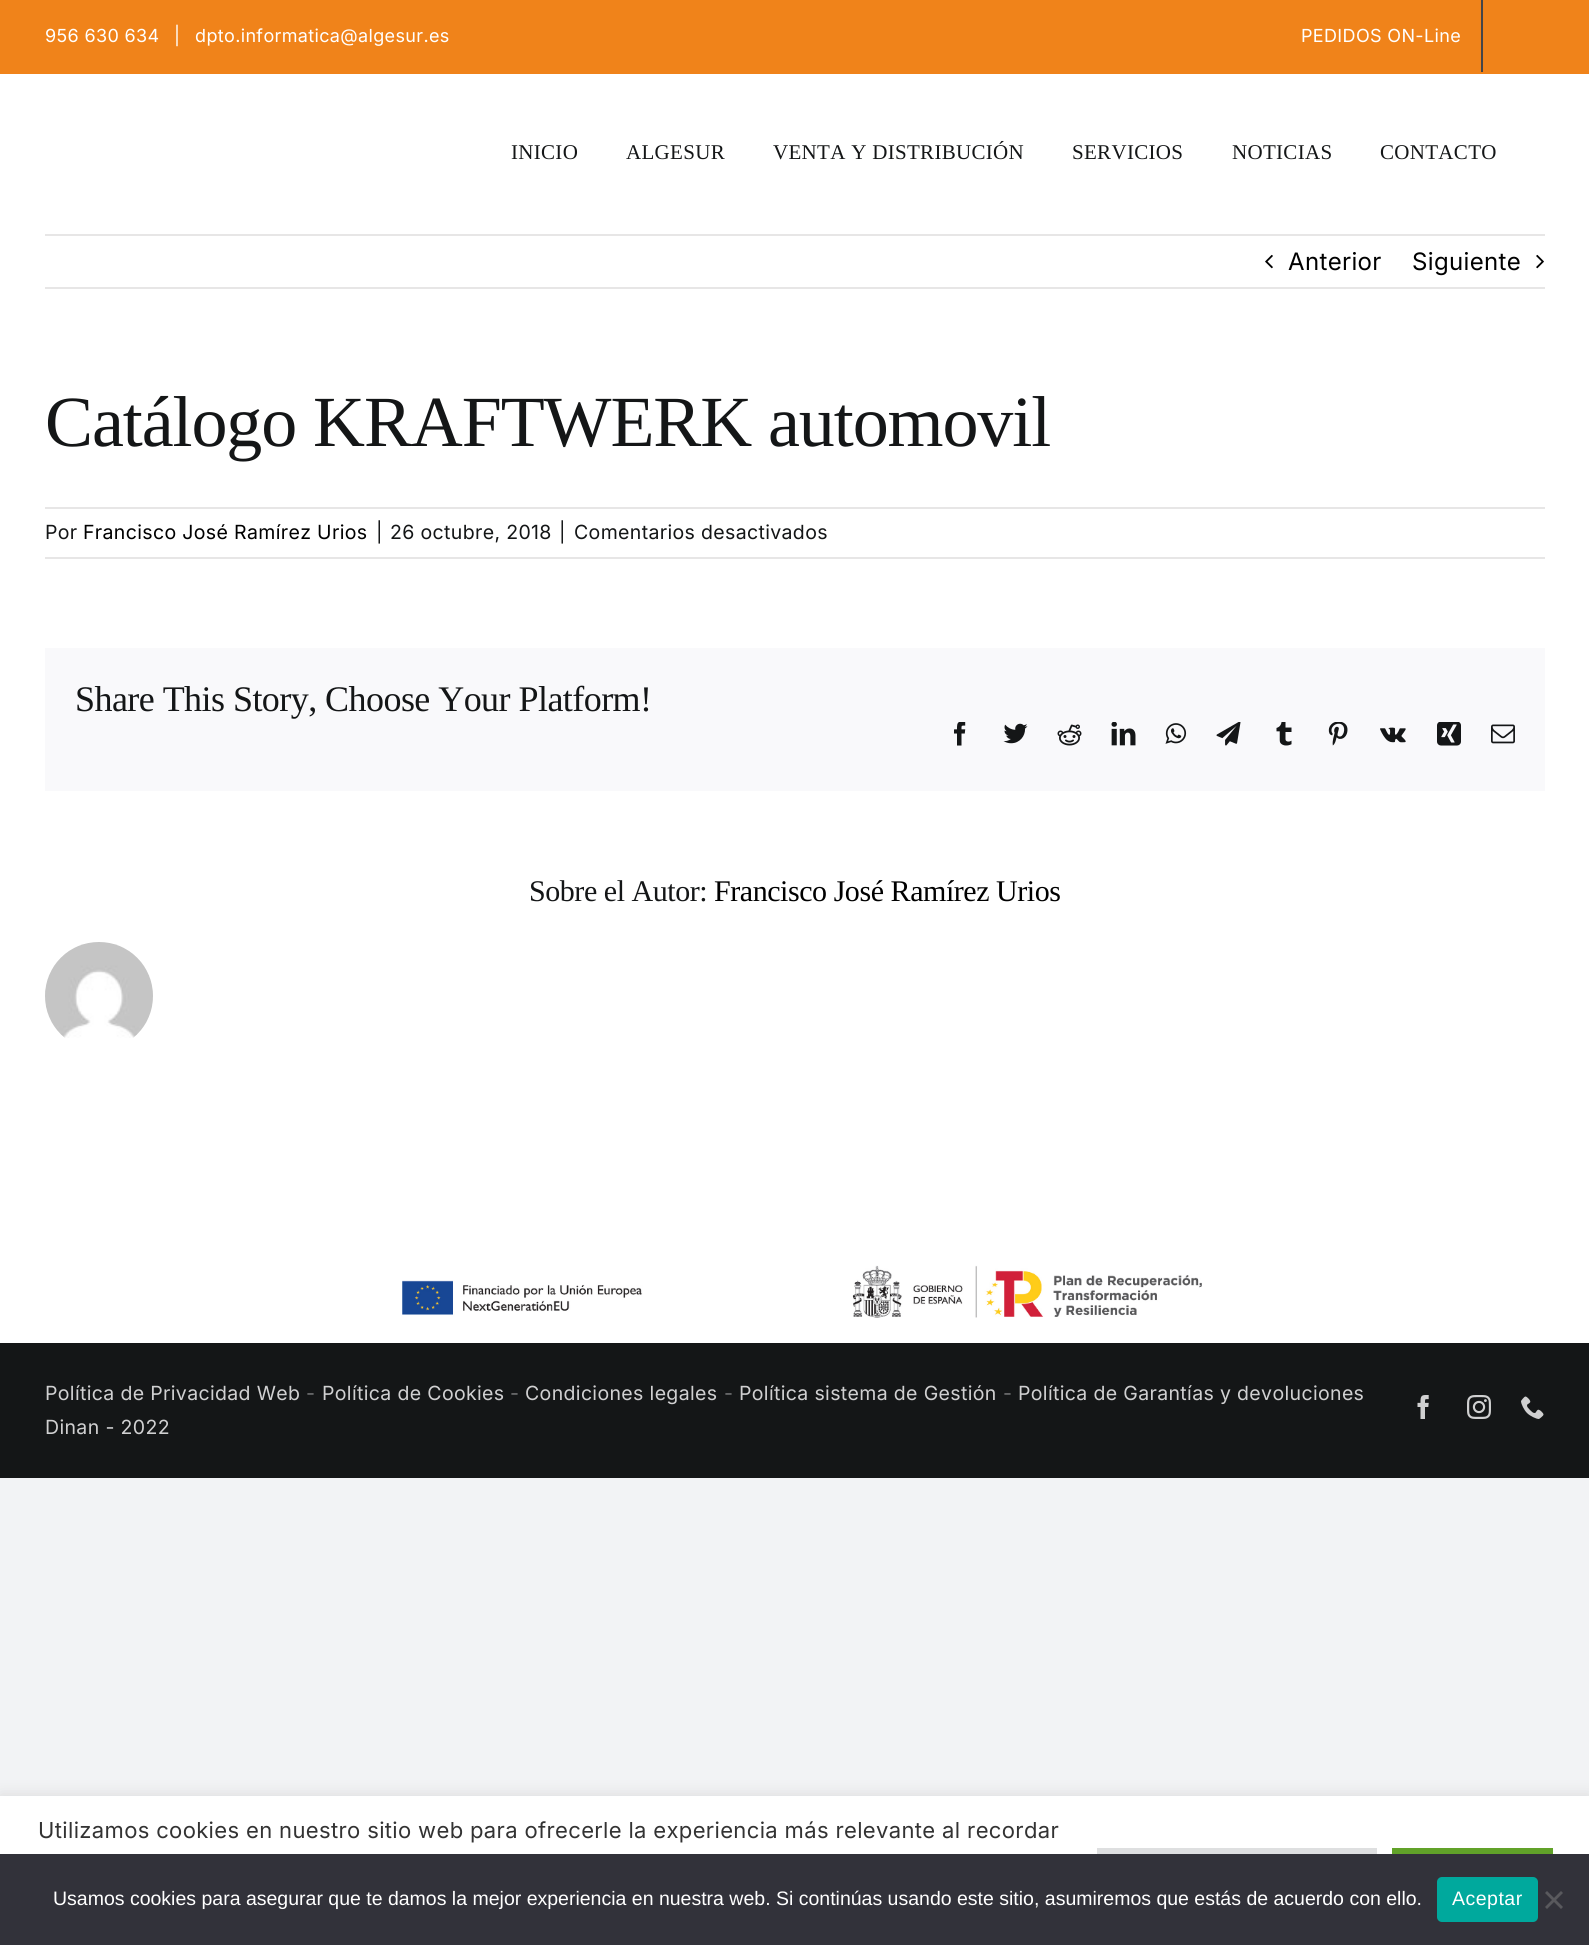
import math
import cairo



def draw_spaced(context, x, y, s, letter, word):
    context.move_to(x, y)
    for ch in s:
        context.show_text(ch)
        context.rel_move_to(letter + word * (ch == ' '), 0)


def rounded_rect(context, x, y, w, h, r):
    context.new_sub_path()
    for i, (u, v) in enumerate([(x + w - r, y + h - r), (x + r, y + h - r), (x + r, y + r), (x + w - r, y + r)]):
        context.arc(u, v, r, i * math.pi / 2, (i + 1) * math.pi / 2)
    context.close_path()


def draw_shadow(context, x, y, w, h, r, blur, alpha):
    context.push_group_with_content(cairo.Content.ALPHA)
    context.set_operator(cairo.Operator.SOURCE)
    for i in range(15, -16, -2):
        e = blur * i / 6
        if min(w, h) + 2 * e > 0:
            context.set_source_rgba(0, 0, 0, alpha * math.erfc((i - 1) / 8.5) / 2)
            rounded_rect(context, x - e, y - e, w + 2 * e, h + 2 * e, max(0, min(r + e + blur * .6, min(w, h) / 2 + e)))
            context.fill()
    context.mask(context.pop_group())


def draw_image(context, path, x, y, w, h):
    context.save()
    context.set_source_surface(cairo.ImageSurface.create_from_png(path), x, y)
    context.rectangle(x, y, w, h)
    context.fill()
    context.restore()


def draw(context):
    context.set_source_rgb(242 / 255, 243 / 255, 245 / 255)
    context.paint()
    context.set_source_rgb(1, 1, 1)
    context.rectangle(0, 74, 1589, 1269)
    context.fill()
    context.set_source_rgb(240 / 255, 131 / 255, 26 / 255)
    context.rectangle(0, 0, 1589, 74)
    context.fill()
    context.set_source_rgb(67 / 255, 69 / 255, 73 / 255)
    context.rectangle(1481, 0, 2, 72)
    context.fill()
    context.set_source_rgb(231 / 255, 230 / 255, 230 / 255)
    context.rectangle(45, 234, 1500, 2)
    context.fill()
    context.rectangle(45, 287, 1500, 2)
    context.fill()
    draw_image(context, "images/1.png", 1265, 254, 8, 15)
    draw_image(context, "images/2.png", 1536, 254, 8, 15)
    context.rectangle(45, 507, 1500, 2)
    context.fill()
    context.rectangle(45, 557, 1500, 2)
    context.fill()
    context.set_source_rgb(249 / 255, 249 / 255, 251 / 255)
    context.rectangle(45, 648, 1500, 143)
    context.fill()
    draw_image(context, "images/3.png", 954, 722, 12, 24)
    draw_image(context, "images/4.png", 1003, 723, 25, 21)
    draw_image(context, "images/5.png", 1057, 724, 25, 22)
    draw_image(context, "images/6.png", 1111, 722, 25, 24)
    draw_image(context, "images/7.png", 1165, 723, 22, 21)
    draw_image(context, "images/8.png", 1216, 722, 25, 24)
    draw_image(context, "images/9.png", 1276, 722, 16, 24)
    draw_image(context, "images/10.png", 1328, 722, 20, 24)
    draw_image(context, "images/11.png", 1380, 727, 26, 16)
    draw_image(context, "images/12.png", 1437, 722, 24, 24)
    draw_image(context, "images/13.png", 1491, 724, 24, 20)
    draw_image(context, "images/14.png", 45, 942, 108, 96)
    draw_image(context, "images/15.png", 402, 1265, 800, 53)
    context.set_source_rgb(20 / 255, 22 / 255, 23 / 255)
    context.rectangle(0, 1343, 1589, 135)
    context.fill()
    draw_image(context, "images/16.png", 1417, 1395, 12, 24)
    draw_image(context, "images/17.png", 1467, 1395, 24, 24)
    draw_image(context, "images/18.png", 1521, 1396, 23, 23)
    context.set_source_rgb(172 / 255, 171 / 255, 171 / 255)
    draw_shadow(context, 0, 1794, 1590, 150, 0, 7.5, 0.3)
    context.set_source_rgb(1, 1, 1)
    context.rectangle(0, 1796, 1589, 58)
    context.fill()
    context.set_source_rgb(222 / 255, 223 / 255, 224 / 255)
    context.rectangle(1097, 1848, 280, 6)
    context.fill()
    context.set_source_rgb(97 / 255, 162 / 255, 41 / 255)
    context.rectangle(1392, 1848, 161, 6)
    context.fill()
    context.set_source_rgb(50 / 255, 50 / 255, 58 / 255)
    context.rectangle(0, 1854, 1589, 91)
    context.fill()
    context.set_source_rgb(0, 169 / 255, 157 / 255)
    rounded_rect(context, 1437, 1877, 101, 45, 5)
    context.fill()
    context.set_source_rgb(89 / 255, 89 / 255, 93 / 255)
    context.new_path()
    context.move_to(1561, 1891)
    context.line_to(1563, 1893)
    context.line_to(1547, 1909)
    context.line_to(1545, 1907)
    context.close_path()
    context.fill()
    context.new_path()
    context.move_to(1545, 1893)
    context.line_to(1547, 1891)
    context.line_to(1563, 1907)
    context.line_to(1561, 1909)
    context.close_path()
    context.fill()
    context.select_font_face("Inter")
    context.set_font_size(18)
    context.set_source_rgb(1, 1, 1)
    draw_spaced(context, 45, 42, "956 630 634", 0.35, 0)
    draw_spaced(context, 174, 42, "|", 0.35, 0)
    draw_spaced(context, 195, 42, "dpto.informatica@algesur.es", 0.35, 0)
    draw_spaced(context, 1301, 42, "PEDIDOS ON-Line", 0.35, 0)
    context.select_font_face("Liberation Serif")
    context.set_font_size(21)
    context.set_source_rgb(20 / 255, 22 / 255, 23 / 255)
    draw_spaced(context, 511, 159, "INICIO", 0.3, 0)
    draw_spaced(context, 626, 159, "ALGESUR", 0.3, 0)
    draw_spaced(context, 773, 159, "VENTA Y DISTRIBUCIÓN", 0.3, 0)
    draw_spaced(context, 1072, 159, "SERVICIOS", 0.3, 0)
    draw_spaced(context, 1232, 159, "NOTICIAS", 0.3, 0)
    draw_spaced(context, 1380, 159, "CONTACTO", 0.3, 0)
    context.select_font_face("Inter")
    context.set_font_size(24)
    context.set_source_rgb(0, 0, 0)
    draw_spaced(context, 1288, 270, "Anterior", 0.35, 0)
    draw_spaced(context, 1412, 270, "Siguiente", 0.35, 0)
    context.select_font_face("Liberation Serif")
    context.set_font_size(72)
    context.set_source_rgb(20 / 255, 22 / 255, 23 / 255)
    draw_spaced(context, 45, 446, "Catálogo KRAFTWERK automovil", -1.1, 0)
    context.select_font_face("Inter")
    context.set_font_size(19.5)
    draw_spaced(context, 45, 539, "Por", 0.35, 0)
    context.set_source_rgb(0, 0, 0)
    draw_spaced(context, 83, 539, "Francisco José Ramírez Urios", 0.35, 0)
    context.set_source_rgb(20 / 255, 22 / 255, 23 / 255)
    draw_spaced(context, 376, 539, "|", 0.35, 0)
    draw_spaced(context, 390, 539, "26 octubre, 2018", 0.35, 0)
    draw_spaced(context, 559, 539, "|", 0.35, 0)
    draw_spaced(context, 574, 539, "Comentarios desactivados", 0.35, 0)
    context.select_font_face("Liberation Serif")
    context.set_font_size(36)
    draw_spaced(context, 75, 711, "Share This Story, Choose Your Platform!", -0.55, 0)
    context.set_font_size(30)
    draw_spaced(context, 529, 901, "Sobre el Autor:", -0.45, 0)
    context.set_source_rgb(0, 0, 0)
    draw_spaced(context, 714, 901, "Francisco José Ramírez Urios", -0.45, 0)
    context.select_font_face("Inter")
    context.set_font_size(19.5)
    context.set_source_rgb(208 / 255, 208 / 255, 209 / 255)
    draw_spaced(context, 45, 1400, "Política de Privacidad Web", 0.35, 0)
    context.set_source_rgb(114 / 255, 115 / 255, 116 / 255)
    draw_spaced(context, 306, 1400, "-", 0.35, 0)
    context.set_source_rgb(208 / 255, 208 / 255, 209 / 255)
    draw_spaced(context, 322, 1400, "Política de Cookies", 0.35, 0)
    context.set_source_rgb(114 / 255, 115 / 255, 116 / 255)
    draw_spaced(context, 510, 1400, "-", 0.35, 0)
    context.set_source_rgb(208 / 255, 208 / 255, 209 / 255)
    draw_spaced(context, 525, 1400, "Condiciones legales", 0.35, 0)
    context.set_source_rgb(114 / 255, 115 / 255, 116 / 255)
    draw_spaced(context, 724, 1400, "-", 0.35, 0)
    context.set_source_rgb(208 / 255, 208 / 255, 209 / 255)
    draw_spaced(context, 739, 1400, "Política sistema de Gestión", 0.35, 0)
    context.set_source_rgb(114 / 255, 115 / 255, 116 / 255)
    draw_spaced(context, 1003, 1400, "-", 0.35, 0)
    context.set_source_rgb(208 / 255, 208 / 255, 209 / 255)
    draw_spaced(context, 1018, 1400, "Política de Garantías y devoluciones", 0.35, 0)
    draw_spaced(context, 45, 1434, "Dinan - 2022", 0.35, 0)
    context.set_font_size(22)
    context.set_source_rgb(51 / 255, 51 / 255, 51 / 255)
    draw_spaced(context, 38, 1838, "Utilizamos cookies en nuestro sitio web para ofrecerle la experiencia más relevante al recordar", 0.35, 0)
    context.select_font_face("Liberation Sans")
    context.set_font_size(19.5)
    context.set_source_rgb(1, 1, 1)
    context.move_to(53, 1905)
    context.show_text("Usamos cookies para asegurar que te damos la mejor experiencia en nuestra web. Si continúas usando este sitio, asumiremos que estás de acuerdo con ello.")
    draw_spaced(context, 1452, 1905, "Aceptar", 0.5, 0)


surface = cairo.ImageSurface(cairo.Format.RGB24, 1589, 1945)
context = cairo.Context(surface)
options = cairo.FontOptions()
options.set_hint_metrics(cairo.HintMetrics.OFF)
options.set_hint_style(cairo.HintStyle.NONE)
context.set_font_options(options)
context.set_miter_limit(4)
draw(context)
surface.write_to_png("out.png")
